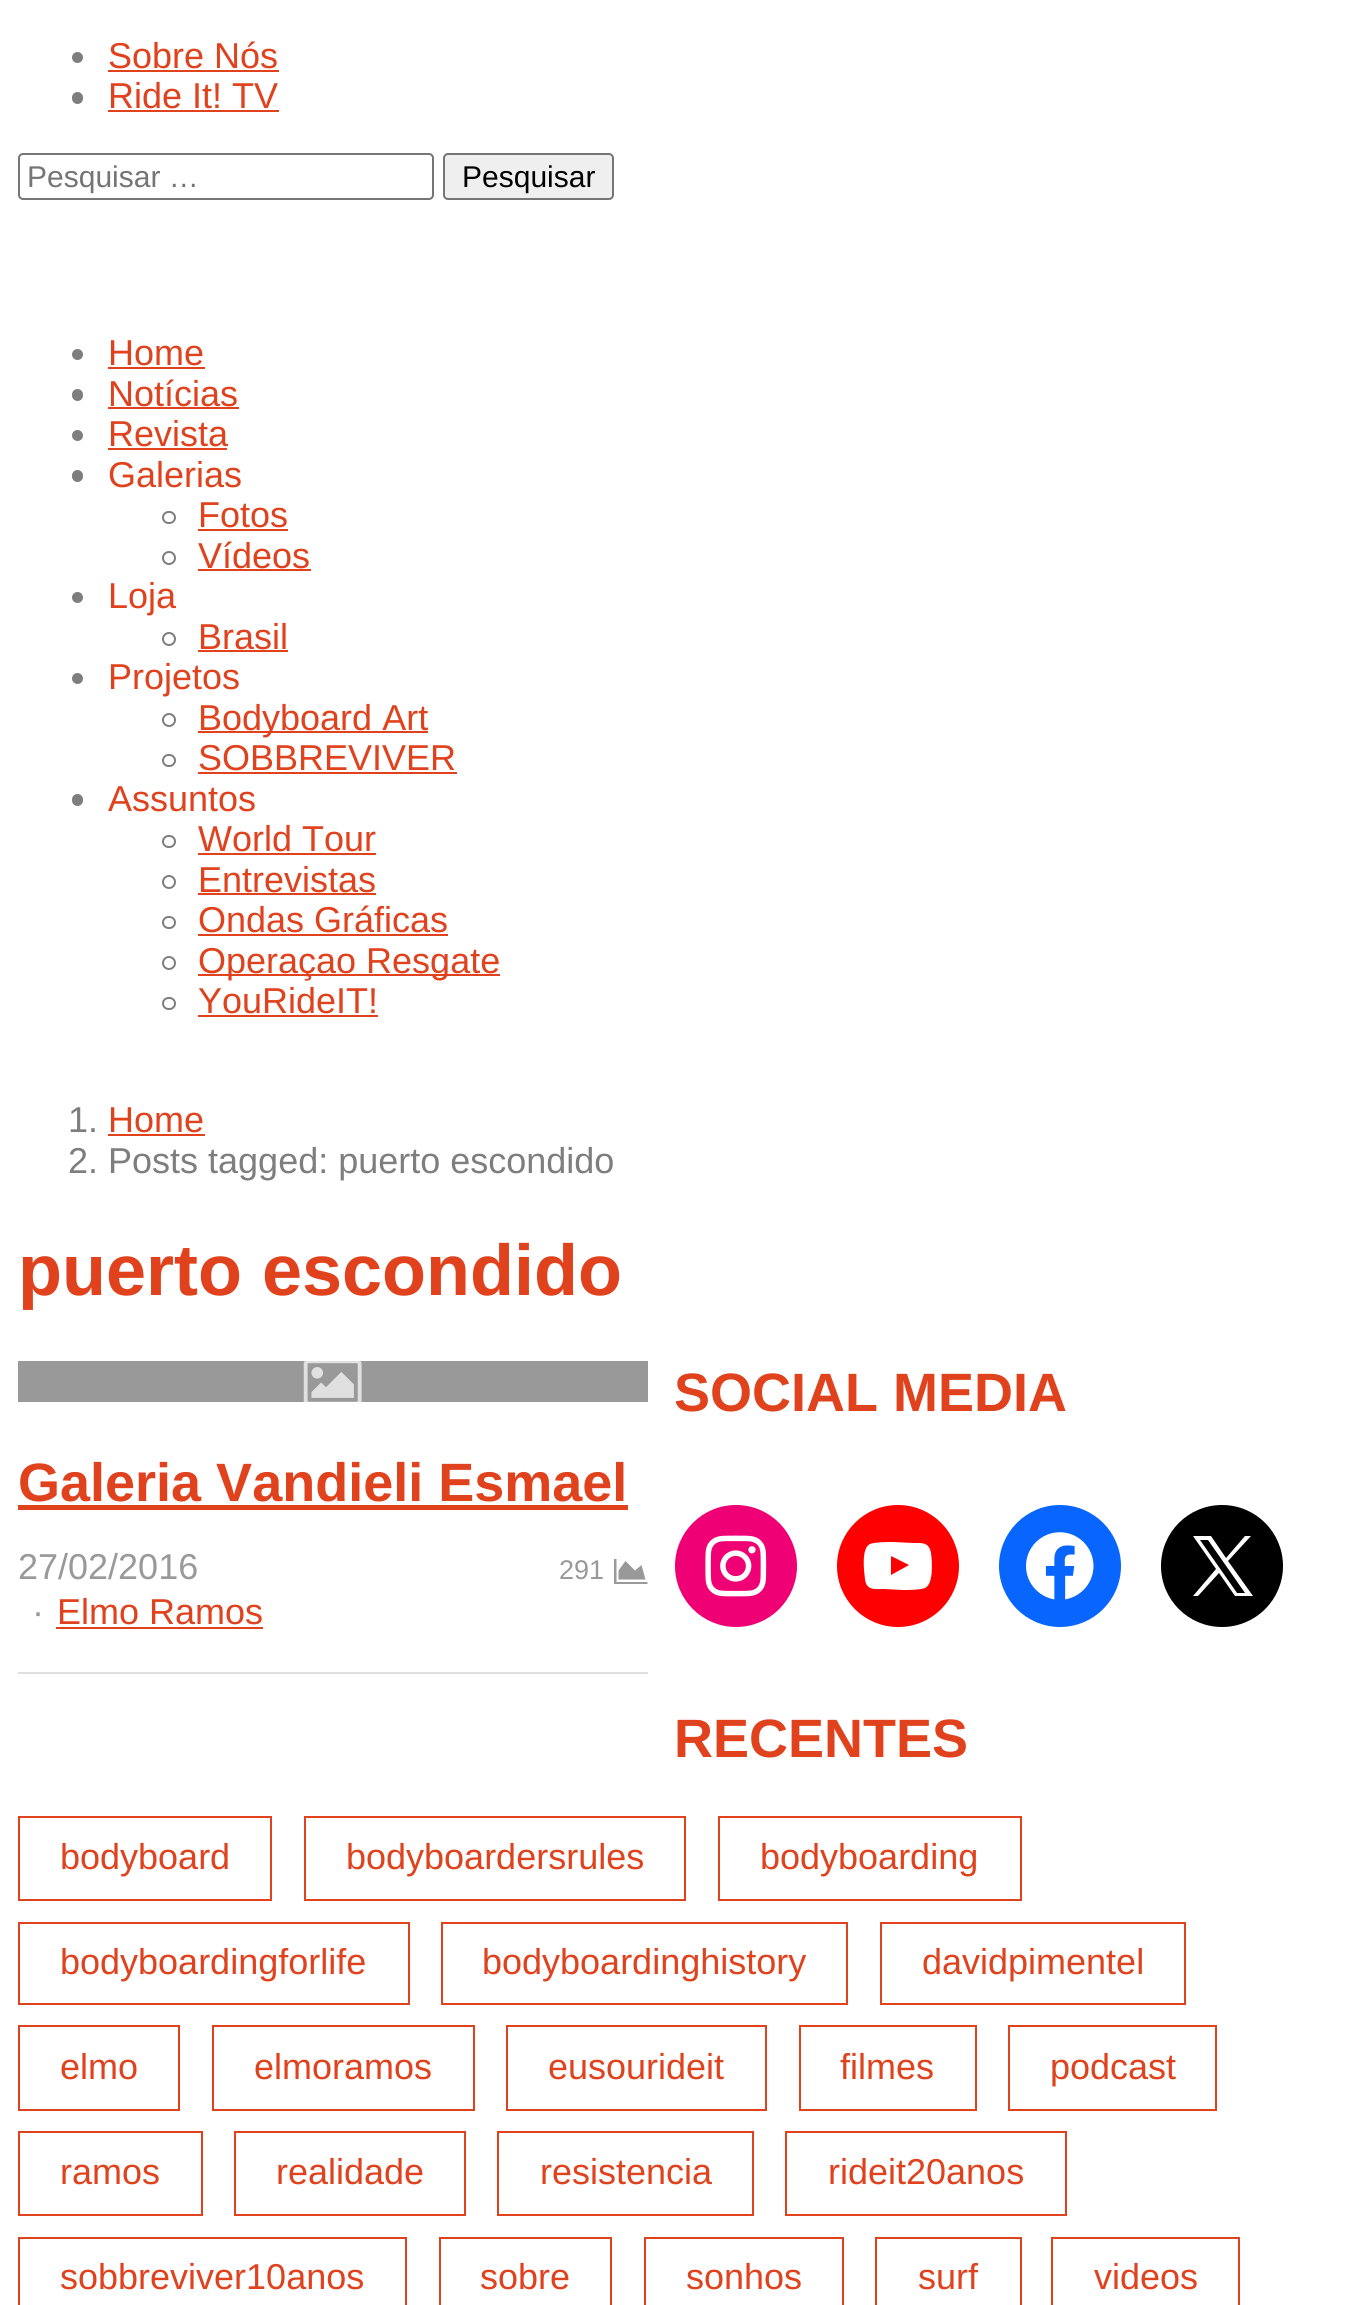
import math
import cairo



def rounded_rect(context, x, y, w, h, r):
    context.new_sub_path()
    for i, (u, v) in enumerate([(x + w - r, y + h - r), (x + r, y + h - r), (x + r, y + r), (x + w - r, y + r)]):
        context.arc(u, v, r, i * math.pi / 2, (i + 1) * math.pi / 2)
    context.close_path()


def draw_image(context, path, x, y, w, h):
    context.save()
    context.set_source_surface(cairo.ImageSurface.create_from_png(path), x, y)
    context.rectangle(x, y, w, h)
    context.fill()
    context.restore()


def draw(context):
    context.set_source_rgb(1, 1, 1)
    context.paint()
    context.set_source_rgb(126 / 255, 126 / 255, 126 / 255)
    context.arc(77.5, 57.5, 5.5, 0, 2 * math.pi)
    context.fill()
    context.set_source_rgb(223 / 255, 66 / 255, 29 / 255)
    context.rectangle(108, 70, 171, 2)
    context.fill()
    context.set_source_rgb(126 / 255, 126 / 255, 126 / 255)
    rounded_rect(context, 72, 92, 11, 12, 5.5)
    context.fill()
    context.set_source_rgb(223 / 255, 66 / 255, 29 / 255)
    context.rectangle(108, 110, 171, 2)
    context.fill()
    rounded_rect(context, 19, 154, 414, 45, 4)
    context.set_source_rgb(118 / 255, 118 / 255, 118 / 255)
    context.stroke()
    context.set_source_rgb(239 / 255, 239 / 255, 239 / 255)
    rounded_rect(context, 444, 154, 169, 45, 4)
    context.fill_preserve()
    context.set_source_rgb(118 / 255, 118 / 255, 118 / 255)
    context.stroke()
    context.set_source_rgb(126 / 255, 126 / 255, 126 / 255)
    context.arc(77.5, 354.5, 5.5, 0, 2 * math.pi)
    context.fill()
    context.set_source_rgb(223 / 255, 66 / 255, 29 / 255)
    context.rectangle(108, 367, 97, 2)
    context.fill()
    context.set_source_rgb(126 / 255, 126 / 255, 126 / 255)
    rounded_rect(context, 72, 389, 11, 12, 5.5)
    context.fill()
    context.set_source_rgb(223 / 255, 66 / 255, 29 / 255)
    context.rectangle(108, 407, 131, 2)
    context.fill()
    context.set_source_rgb(126 / 255, 126 / 255, 126 / 255)
    context.arc(77.5, 435.5, 5.5, 0, 2 * math.pi)
    context.fill()
    context.set_source_rgb(223 / 255, 66 / 255, 29 / 255)
    context.rectangle(108, 448, 119, 2)
    context.fill()
    context.set_source_rgb(126 / 255, 126 / 255, 126 / 255)
    rounded_rect(context, 72, 470, 11, 12, 5.5)
    context.fill()
    rounded_rect(context, 163, 512, 12, 11, 5.5)
    context.stroke()
    context.set_source_rgb(223 / 255, 66 / 255, 29 / 255)
    context.rectangle(198, 529, 90, 2)
    context.fill()
    context.arc(169, 558, 6, 0, 2 * math.pi)
    context.set_source_rgb(126 / 255, 126 / 255, 126 / 255)
    context.stroke()
    context.set_source_rgb(223 / 255, 66 / 255, 29 / 255)
    context.rectangle(198, 569, 113, 2)
    context.fill()
    context.set_source_rgb(126 / 255, 126 / 255, 126 / 255)
    context.arc(77.5, 597.5, 5.5, 0, 2 * math.pi)
    context.fill()
    context.arc(169, 639, 6, 0, 2 * math.pi)
    context.stroke()
    context.set_source_rgb(223 / 255, 66 / 255, 29 / 255)
    context.rectangle(198, 650, 90, 2)
    context.fill()
    context.set_source_rgb(126 / 255, 126 / 255, 126 / 255)
    context.arc(77.5, 678.5, 5.5, 0, 2 * math.pi)
    context.fill()
    context.arc(169, 720, 6, 0, 2 * math.pi)
    context.stroke()
    context.set_source_rgb(223 / 255, 66 / 255, 29 / 255)
    context.rectangle(198, 731, 230, 2)
    context.fill()
    rounded_rect(context, 163, 755, 12, 11, 5.5)
    context.set_source_rgb(126 / 255, 126 / 255, 126 / 255)
    context.stroke()
    context.set_source_rgb(223 / 255, 66 / 255, 29 / 255)
    context.rectangle(198, 772, 259, 2)
    context.fill()
    context.set_source_rgb(126 / 255, 126 / 255, 126 / 255)
    rounded_rect(context, 72, 794, 11, 12, 5.5)
    context.fill()
    rounded_rect(context, 163, 836, 12, 11, 5.5)
    context.stroke()
    context.set_source_rgb(223 / 255, 66 / 255, 29 / 255)
    context.rectangle(198, 853, 178, 2)
    context.fill()
    context.arc(169, 882, 6, 0, 2 * math.pi)
    context.set_source_rgb(126 / 255, 126 / 255, 126 / 255)
    context.stroke()
    context.set_source_rgb(223 / 255, 66 / 255, 29 / 255)
    context.rectangle(198, 893, 178, 2)
    context.fill()
    rounded_rect(context, 163, 917, 12, 11, 5.5)
    context.set_source_rgb(126 / 255, 126 / 255, 126 / 255)
    context.stroke()
    context.set_source_rgb(223 / 255, 66 / 255, 29 / 255)
    context.rectangle(198, 934, 250, 2)
    context.fill()
    context.arc(169, 963, 6, 0, 2 * math.pi)
    context.set_source_rgb(126 / 255, 126 / 255, 126 / 255)
    context.stroke()
    context.set_source_rgb(223 / 255, 66 / 255, 29 / 255)
    context.rectangle(198, 974, 302, 2)
    context.fill()
    rounded_rect(context, 163, 998, 12, 11, 5.5)
    context.set_source_rgb(126 / 255, 126 / 255, 126 / 255)
    context.stroke()
    context.set_source_rgb(223 / 255, 66 / 255, 29 / 255)
    context.rectangle(198, 1015, 180, 2)
    context.fill()
    context.rectangle(108, 1134, 97, 2)
    context.fill()
    context.set_source_rgb(153 / 255, 153 / 255, 153 / 255)
    context.rectangle(18, 1361, 630, 41)
    context.fill()
    draw_image(context, "images/1.png", 303, 1361, 59, 41)
    context.set_source_rgb(223 / 255, 66 / 255, 29 / 255)
    context.rectangle(18, 1505, 610, 5)
    context.fill()
    context.rectangle(56, 1627, 207, 2)
    context.fill()
    context.set_source_rgb(153 / 255, 153 / 255, 153 / 255)
    context.new_path()
    context.move_to(647.5, 1582)
    context.line_to(616.5, 1582)
    context.line_to(616.5, 1559)
    context.line_to(614, 1559)
    context.line_to(614, 1584)
    context.line_to(647.5, 1584)
    context.close_path()
    context.move_to(641.5, 1565)
    context.line_to(635, 1570.5)
    context.line_to(625.5, 1561)
    context.line_to(618.5, 1570.5)
    context.line_to(618.5, 1579.5)
    context.line_to(645.5, 1579.5)
    context.close_path()
    context.fill()
    context.set_source_rgb(224 / 255, 224 / 255, 224 / 255)
    context.rectangle(18, 1672, 630, 2)
    context.fill()
    context.set_source_rgb(240 / 255, 0, 117 / 255)
    context.arc(736, 1566, 61, 0, 2 * math.pi)
    context.fill()
    draw_image(context, "images/2.png", 705, 1535, 62, 62)
    context.set_source_rgb(1, 0, 0)
    context.arc(898, 1566, 61, 0, 2 * math.pi)
    context.fill()
    context.set_source_rgb(1, 1, 1)
    context.new_path()
    context.move_to(931, 1553)
    context.curve_to(929, 1542, 922, 1543, 914, 1543)
    context.line_to(893, 1542)
    context.curve_to(887, 1542, 875, 1542, 870, 1544)
    context.curve_to(861, 1548, 864, 1572, 865, 1579)
    context.curve_to(866, 1591, 876, 1589, 884, 1589)
    context.line_to(903, 1590)
    context.curve_to(908, 1590, 920, 1590, 925, 1588)
    context.curve_to(934, 1584, 932, 1560, 931, 1553)
    context.close_path()
    context.move_to(891, 1575)
    context.line_to(891, 1556)
    context.line_to(909, 1565)
    context.close_path()
    context.fill()
    context.set_source_rgb(8 / 255, 102 / 255, 1)
    context.arc(1060, 1566, 61, 0, 2 * math.pi)
    context.fill()
    draw_image(context, "images/3.png", 1026, 1532, 68, 68)
    context.set_source_rgb(0, 0, 0)
    context.arc(1222, 1566, 61, 0, 2 * math.pi)
    context.fill()
    context.set_source_rgb(1, 1, 1)
    context.new_path()
    context.move_to(1228, 1561)
    context.line_to(1251, 1536)
    context.line_to(1245, 1536)
    context.line_to(1226, 1558)
    context.line_to(1211, 1536)
    context.line_to(1193, 1536)
    context.line_to(1216, 1569)
    context.line_to(1193, 1596)
    context.line_to(1198, 1596)
    context.line_to(1219, 1573)
    context.line_to(1235, 1596)
    context.line_to(1253, 1596)
    context.close_path()
    context.move_to(1221, 1570)
    context.line_to(1200, 1540)
    context.line_to(1208, 1540)
    context.line_to(1245, 1593)
    context.line_to(1237, 1593)
    context.close_path()
    context.fill()
    context.rectangle(19, 1817, 252, 83)
    context.set_source_rgb(223 / 255, 66 / 255, 29 / 255)
    context.stroke()
    context.rectangle(305, 1817, 380, 83)
    context.stroke()
    context.rectangle(719, 1817, 302, 83)
    context.stroke()
    context.rectangle(19, 1923, 390, 81)
    context.stroke()
    context.rectangle(442, 1923, 405, 81)
    context.stroke()
    context.rectangle(881, 1923, 304, 81)
    context.stroke()
    context.rectangle(19, 2026, 160, 84)
    context.stroke()
    context.rectangle(213, 2026, 261, 84)
    context.stroke()
    context.rectangle(507, 2026, 259, 84)
    context.stroke()
    context.rectangle(800, 2026, 176, 84)
    context.stroke()
    context.rectangle(1009, 2026, 207, 84)
    context.stroke()
    context.rectangle(19, 2132, 183, 83)
    context.stroke()
    context.rectangle(235, 2132, 230, 83)
    context.stroke()
    context.rectangle(498, 2132, 255, 83)
    context.stroke()
    context.rectangle(786, 2132, 280, 83)
    context.stroke()
    context.rectangle(19, 2238, 387, 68)
    context.stroke()
    context.rectangle(440, 2238, 171, 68)
    context.stroke()
    context.rectangle(645, 2238, 198, 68)
    context.stroke()
    context.rectangle(876, 2238, 145, 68)
    context.stroke()
    context.rectangle(1052, 2238, 187, 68)
    context.stroke()
    context.select_font_face("Liberation Sans")
    context.set_font_size(36)
    context.move_to(108, 68)
    context.show_text("Sobre Nós")
    context.move_to(108, 108)
    context.show_text("Ride It! TV")
    context.set_font_size(30)
    context.set_source_rgb(117 / 255, 117 / 255, 117 / 255)
    context.move_to(27, 187)
    context.show_text("Pesquisar …")
    context.set_source_rgb(0, 0, 0)
    context.move_to(462, 187)
    context.show_text("Pesquisar")
    context.set_font_size(36)
    context.set_source_rgb(223 / 255, 66 / 255, 29 / 255)
    context.move_to(108, 365)
    context.show_text("Home")
    context.move_to(108, 406)
    context.show_text("Notícias")
    context.move_to(108, 446)
    context.show_text("Revista")
    context.move_to(108, 487)
    context.show_text("Galerias")
    context.move_to(198, 527)
    context.show_text("Fotos")
    context.move_to(198, 568)
    context.show_text("Vídeos")
    context.move_to(108, 608)
    context.show_text("Loja")
    context.move_to(198, 649)
    context.show_text("Brasil")
    context.move_to(108, 689)
    context.show_text("Projetos")
    context.move_to(198, 730)
    context.show_text("Bodyboard Art")
    context.move_to(198, 770)
    context.show_text("SOBBREVIVER")
    context.move_to(108, 811)
    context.show_text("Assuntos")
    context.move_to(198, 851)
    context.show_text("World Tour")
    context.move_to(198, 892)
    context.show_text("Entrevistas")
    context.move_to(198, 932)
    context.show_text("Ondas Gráficas")
    context.move_to(198, 973)
    context.show_text("Operaçao Resgate")
    context.move_to(198, 1013)
    context.show_text("YouRideIT!")
    context.set_source_rgb(126 / 255, 126 / 255, 126 / 255)
    context.move_to(68, 1132)
    context.show_text("1.")
    context.set_source_rgb(223 / 255, 66 / 255, 29 / 255)
    context.move_to(108, 1132)
    context.show_text("Home")
    context.set_source_rgb(126 / 255, 126 / 255, 126 / 255)
    context.move_to(68, 1173)
    context.show_text("2. Posts tagged: puerto escondido")
    context.select_font_face("Liberation Sans", cairo.FontSlant.NORMAL, cairo.FontWeight.BOLD)
    context.set_font_size(72)
    context.set_source_rgb(223 / 255, 66 / 255, 29 / 255)
    context.move_to(18, 1295)
    context.show_text("puerto escondido")
    context.set_font_size(54)
    context.move_to(18, 1501)
    context.show_text("Galeria Vandieli Esmael")
    context.select_font_face("Liberation Sans")
    context.set_font_size(36)
    context.set_source_rgb(153 / 255, 153 / 255, 153 / 255)
    context.move_to(18, 1579)
    context.show_text("27/02/2016")
    context.move_to(32, 1624)
    context.show_text("·")
    context.set_source_rgb(223 / 255, 66 / 255, 29 / 255)
    context.move_to(57, 1624)
    context.show_text("Elmo Ramos")
    context.set_font_size(27)
    context.set_source_rgb(153 / 255, 153 / 255, 153 / 255)
    context.move_to(559, 1579)
    context.show_text("291")
    context.select_font_face("Liberation Sans", cairo.FontSlant.NORMAL, cairo.FontWeight.BOLD)
    context.set_font_size(54)
    context.set_source_rgb(223 / 255, 66 / 255, 29 / 255)
    context.move_to(674, 1411)
    context.show_text("SOCIAL MEDIA")
    context.move_to(674, 1757)
    context.show_text("RECENTES")
    context.select_font_face("Liberation Sans")
    context.set_font_size(36)
    context.move_to(60, 1869)
    context.show_text("bodyboard")
    context.move_to(346, 1869)
    context.show_text("bodyboardersrules")
    context.move_to(760, 1869)
    context.show_text("bodyboarding")
    context.move_to(60, 1974)
    context.show_text("bodyboardingforlife")
    context.move_to(482, 1974)
    context.show_text("bodyboardinghistory")
    context.move_to(922, 1974)
    context.show_text("davidpimentel")
    context.move_to(60, 2079)
    context.show_text("elmo")
    context.move_to(254, 2079)
    context.show_text("elmoramos")
    context.move_to(548, 2079)
    context.show_text("eusourideit")
    context.move_to(840, 2079)
    context.show_text("filmes")
    context.move_to(1050, 2079)
    context.show_text("podcast")
    context.move_to(60, 2184)
    context.show_text("ramos")
    context.move_to(276, 2184)
    context.show_text("realidade")
    context.move_to(540, 2184)
    context.show_text("resistencia")
    context.move_to(828, 2184)
    context.show_text("rideit20anos")
    context.move_to(60, 2289)
    context.show_text("sobbreviver10anos")
    context.move_to(480, 2289)
    context.show_text("sobre")
    context.move_to(686, 2289)
    context.show_text("sonhos")
    context.move_to(918, 2289)
    context.show_text("surf")
    context.move_to(1094, 2289)
    context.show_text("videos")


surface = cairo.ImageSurface(cairo.Format.RGB24, 1346, 2305)
context = cairo.Context(surface)
options = cairo.FontOptions()
options.set_hint_metrics(cairo.HintMetrics.OFF)
options.set_hint_style(cairo.HintStyle.NONE)
context.set_font_options(options)
context.set_miter_limit(4)
draw(context)
surface.write_to_png("out.png")
